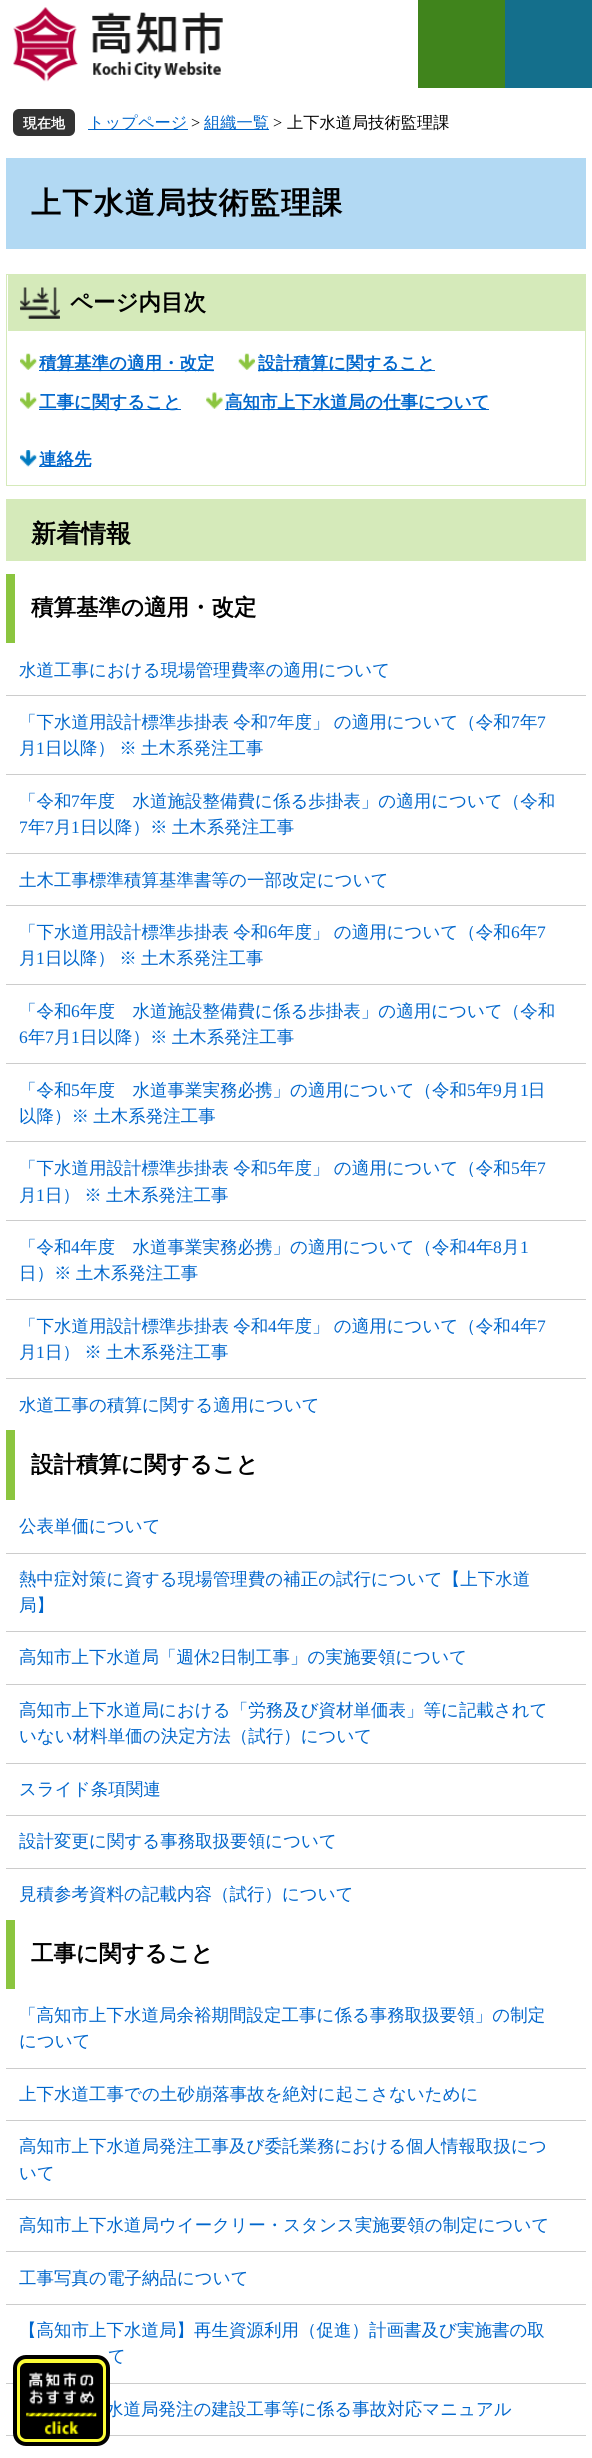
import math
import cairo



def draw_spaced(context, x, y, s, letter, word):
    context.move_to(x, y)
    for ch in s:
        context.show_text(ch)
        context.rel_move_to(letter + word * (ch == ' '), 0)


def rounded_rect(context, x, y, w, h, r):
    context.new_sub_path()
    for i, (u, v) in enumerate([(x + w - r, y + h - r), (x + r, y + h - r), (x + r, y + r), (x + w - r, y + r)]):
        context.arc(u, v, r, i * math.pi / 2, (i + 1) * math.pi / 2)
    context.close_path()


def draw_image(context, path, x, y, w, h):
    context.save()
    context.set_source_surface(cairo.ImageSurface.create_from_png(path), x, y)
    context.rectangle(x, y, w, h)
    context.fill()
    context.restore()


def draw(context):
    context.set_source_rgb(1, 1, 1)
    context.paint()
    draw_image(context, "images/1.png", 13, 7, 210, 75)
    context.set_source_rgb(64 / 255, 132 / 255, 28 / 255)
    context.rectangle(418, 0, 87, 88)
    context.fill()
    context.set_source_rgb(20 / 255, 111 / 255, 140 / 255)
    context.rectangle(505, 0, 87, 88)
    context.fill()
    context.set_source_rgb(51 / 255, 51 / 255, 51 / 255)
    rounded_rect(context, 13, 109, 62, 27, 6)
    context.fill()
    context.set_source_rgb(0, 102 / 255, 204 / 255)
    context.rectangle(88, 129, 100, 1)
    context.fill()
    context.rectangle(204, 129, 65, 1)
    context.fill()
    context.set_source_rgb(178 / 255, 217 / 255, 243 / 255)
    context.rectangle(6, 158, 580, 91)
    context.fill()
    context.rectangle(6.5, 274.5, 579, 211)
    context.set_source_rgb(213 / 255, 234 / 255, 186 / 255)
    context.set_line_width(1)
    context.stroke()
    context.rectangle(8, 275, 577, 56)
    context.fill()
    draw_image(context, "images/2.png", 20, 287, 40, 32)
    draw_image(context, "images/3.png", 20, 353, 17, 17)
    context.set_source_rgb(0, 102 / 255, 204 / 255)
    context.rectangle(39, 370, 175, 1)
    context.fill()
    draw_image(context, "images/4.png", 238, 353, 17, 17)
    context.rectangle(258, 370, 177, 1)
    context.fill()
    draw_image(context, "images/5.png", 20, 392, 17, 17)
    context.rectangle(39, 409, 142, 1)
    context.fill()
    draw_image(context, "images/6.png", 206, 392, 17, 17)
    context.rectangle(225, 409, 264, 1)
    context.fill()
    draw_image(context, "images/7.png", 20, 450, 17, 17)
    context.rectangle(39, 466, 52, 1)
    context.fill()
    context.set_source_rgb(213 / 255, 234 / 255, 186 / 255)
    context.rectangle(6, 499, 580, 62)
    context.fill()
    context.set_source_rgb(139 / 255, 197 / 255, 63 / 255)
    context.rectangle(6, 574, 9, 69)
    context.fill()
    context.set_source_rgb(204 / 255, 204 / 255, 204 / 255)
    context.rectangle(6, 695, 580, 1)
    context.fill()
    context.rectangle(6, 774, 580, 1)
    context.fill()
    context.rectangle(6, 853, 580, 1)
    context.fill()
    context.rectangle(6, 905, 580, 1)
    context.fill()
    context.rectangle(6, 984, 580, 1)
    context.fill()
    context.rectangle(6, 1063, 580, 1)
    context.fill()
    context.rectangle(6, 1141, 580, 1)
    context.fill()
    context.rectangle(6, 1220, 580, 1)
    context.fill()
    context.rectangle(6, 1299, 580, 1)
    context.fill()
    context.rectangle(6, 1378, 580, 1)
    context.fill()
    context.set_source_rgb(139 / 255, 197 / 255, 63 / 255)
    context.rectangle(6, 1430, 9, 70)
    context.fill()
    context.set_source_rgb(204 / 255, 204 / 255, 204 / 255)
    context.rectangle(6, 1553, 580, 1)
    context.fill()
    context.rectangle(6, 1631, 580, 1)
    context.fill()
    context.rectangle(6, 1684, 580, 1)
    context.fill()
    context.rectangle(6, 1763, 580, 1)
    context.fill()
    context.rectangle(6, 1815, 580, 1)
    context.fill()
    context.rectangle(6, 1868, 580, 1)
    context.fill()
    context.set_source_rgb(139 / 255, 197 / 255, 63 / 255)
    context.rectangle(6, 1920, 9, 69)
    context.fill()
    context.set_source_rgb(204 / 255, 204 / 255, 204 / 255)
    context.rectangle(6, 2068, 580, 1)
    context.fill()
    context.rectangle(6, 2120, 580, 1)
    context.fill()
    context.rectangle(6, 2199, 580, 1)
    context.fill()
    context.rectangle(6, 2251, 580, 1)
    context.fill()
    context.rectangle(6, 2304, 580, 1)
    context.fill()
    context.rectangle(6, 2383, 580, 1)
    context.fill()
    context.rectangle(6, 2435, 580, 1)
    context.fill()
    context.select_font_face("WenQuanYi Zen Hei", cairo.FontSlant.NORMAL, cairo.FontWeight.BOLD)
    context.set_font_size(14)
    context.set_source_rgb(1, 1, 1)
    context.move_to(23, 128)
    context.show_text("現在地")
    context.select_font_face("WenQuanYi Zen Hei Medium")
    context.set_font_size(16.25)
    context.set_source_rgb(0, 102 / 255, 204 / 255)
    context.move_to(88, 128)
    context.show_text("トップページ")
    context.select_font_face("Liberation Serif")
    context.set_source_rgb(0, 0, 0)
    context.move_to(191, 128)
    context.show_text(">")
    context.select_font_face("WenQuanYi Zen Hei Medium")
    context.set_source_rgb(0, 102 / 255, 204 / 255)
    context.move_to(204, 128)
    context.show_text("組織一覧")
    context.select_font_face("Liberation Serif")
    context.set_source_rgb(0, 0, 0)
    context.move_to(273, 128)
    context.show_text(">")
    context.select_font_face("WenQuanYi Zen Hei Medium")
    context.move_to(287, 128)
    context.show_text("上下水道局技術監理課")
    context.select_font_face("WenQuanYi Zen Hei", cairo.FontSlant.NORMAL, cairo.FontWeight.BOLD)
    context.set_font_size(30)
    draw_spaced(context, 31, 213, "上下水道局技術監理課", 1.25, 0)
    context.set_font_size(22.5)
    context.move_to(70, 310)
    context.show_text("ページ内目次")
    context.set_font_size(17.5)
    context.set_source_rgb(0, 102 / 255, 204 / 255)
    context.move_to(39, 369)
    context.show_text("積算基準の適用・改定")
    context.move_to(258, 369)
    context.show_text("設計積算に関すること")
    context.move_to(39, 408)
    context.show_text("工事に関すること")
    context.move_to(225, 408)
    context.show_text("高知市上下水道局の仕事について")
    context.move_to(39, 465)
    context.show_text("連絡先")
    context.set_font_size(25)
    context.set_source_rgb(0, 0, 0)
    context.move_to(31, 542)
    context.show_text("新着情報")
    context.set_font_size(22.5)
    context.move_to(31, 615)
    context.show_text("積算基準の適用・改定")
    context.select_font_face("WenQuanYi Zen Hei Medium")
    context.set_font_size(17.5)
    context.set_source_rgb(0, 102 / 255, 204 / 255)
    context.move_to(19, 676)
    context.show_text("水道工事における現場管理費率の適用について")
    draw_spaced(context, 19, 728, "「下水道用設計標準歩掛表 令和", 0, -1)
    context.select_font_face("Liberation Serif")
    context.move_to(268, 728)
    context.show_text("7")
    context.select_font_face("WenQuanYi Zen Hei Medium")
    draw_spaced(context, 277, 728, "年度」 の適用について（令和", 0, -1)
    context.select_font_face("Liberation Serif")
    context.move_to(511, 728)
    context.show_text("7")
    context.select_font_face("WenQuanYi Zen Hei Medium")
    context.move_to(520, 728)
    context.show_text("年")
    context.select_font_face("Liberation Serif")
    context.move_to(537, 728)
    context.show_text("7")
    context.select_font_face("WenQuanYi Zen Hei Medium")
    context.move_to(19, 754)
    context.show_text("月")
    context.select_font_face("Liberation Serif")
    context.move_to(36, 754)
    context.show_text("1")
    context.select_font_face("WenQuanYi Zen Hei Medium")
    draw_spaced(context, 45, 754, "日以降） ※ 土木系発注工事", 0, -1)
    context.move_to(19, 807)
    context.show_text("「令和")
    context.select_font_face("Liberation Serif")
    context.move_to(71, 807)
    context.show_text("7")
    context.select_font_face("WenQuanYi Zen Hei Medium")
    context.move_to(80, 807)
    context.show_text("年度　水道施設整備費に係る歩掛表」の適用について（令和")
    context.select_font_face("Liberation Serif")
    context.move_to(19, 833)
    context.show_text("7")
    context.select_font_face("WenQuanYi Zen Hei Medium")
    context.move_to(28, 833)
    context.show_text("年")
    context.select_font_face("Liberation Serif")
    context.move_to(45, 833)
    context.show_text("7")
    context.select_font_face("WenQuanYi Zen Hei Medium")
    context.move_to(54, 833)
    context.show_text("月")
    context.select_font_face("Liberation Serif")
    context.move_to(71, 833)
    context.show_text("1")
    context.select_font_face("WenQuanYi Zen Hei Medium")
    draw_spaced(context, 80, 833, "日以降）※ 土木系発注工事", 0, -1)
    context.move_to(19, 886)
    context.show_text("土木工事標準積算基準書等の一部改定について")
    draw_spaced(context, 19, 938, "「下水道用設計標準歩掛表 令和", 0, -1)
    context.select_font_face("Liberation Serif")
    context.move_to(268, 938)
    context.show_text("6")
    context.select_font_face("WenQuanYi Zen Hei Medium")
    draw_spaced(context, 277, 938, "年度」 の適用について（令和", 0, -1)
    context.select_font_face("Liberation Serif")
    context.move_to(511, 938)
    context.show_text("6")
    context.select_font_face("WenQuanYi Zen Hei Medium")
    context.move_to(520, 938)
    context.show_text("年")
    context.select_font_face("Liberation Serif")
    context.move_to(537, 938)
    context.show_text("7")
    context.select_font_face("WenQuanYi Zen Hei Medium")
    context.move_to(19, 964)
    context.show_text("月")
    context.select_font_face("Liberation Serif")
    context.move_to(36, 964)
    context.show_text("1")
    context.select_font_face("WenQuanYi Zen Hei Medium")
    draw_spaced(context, 45, 964, "日以降） ※ 土木系発注工事", 0, -1)
    context.move_to(19, 1017)
    context.show_text("「令和")
    context.select_font_face("Liberation Serif")
    context.move_to(71, 1017)
    context.show_text("6")
    context.select_font_face("WenQuanYi Zen Hei Medium")
    context.move_to(80, 1017)
    context.show_text("年度　水道施設整備費に係る歩掛表」の適用について（令和")
    context.select_font_face("Liberation Serif")
    context.move_to(19, 1043)
    context.show_text("6")
    context.select_font_face("WenQuanYi Zen Hei Medium")
    context.move_to(28, 1043)
    context.show_text("年")
    context.select_font_face("Liberation Serif")
    context.move_to(45, 1043)
    context.show_text("7")
    context.select_font_face("WenQuanYi Zen Hei Medium")
    context.move_to(54, 1043)
    context.show_text("月")
    context.select_font_face("Liberation Serif")
    context.move_to(71, 1043)
    context.show_text("1")
    context.select_font_face("WenQuanYi Zen Hei Medium")
    draw_spaced(context, 80, 1043, "日以降）※ 土木系発注工事", 0, -1)
    context.move_to(19, 1096)
    context.show_text("「令和")
    context.select_font_face("Liberation Serif")
    context.move_to(71, 1096)
    context.show_text("5")
    context.select_font_face("WenQuanYi Zen Hei Medium")
    context.move_to(80, 1096)
    context.show_text("年度　水道事業実務必携」の適用について（令和")
    context.select_font_face("Liberation Serif")
    context.move_to(467, 1096)
    context.show_text("5")
    context.select_font_face("WenQuanYi Zen Hei Medium")
    context.move_to(476, 1096)
    context.show_text("年")
    context.select_font_face("Liberation Serif")
    context.move_to(493, 1096)
    context.show_text("9")
    context.select_font_face("WenQuanYi Zen Hei Medium")
    context.move_to(502, 1096)
    context.show_text("月")
    context.select_font_face("Liberation Serif")
    context.move_to(520, 1096)
    context.show_text("1")
    context.select_font_face("WenQuanYi Zen Hei Medium")
    context.move_to(528, 1096)
    context.show_text("日")
    draw_spaced(context, 19, 1122, "以降）※ 土木系発注工事", 0, -1)
    draw_spaced(context, 19, 1174, "「下水道用設計標準歩掛表 令和", 0, -1)
    context.select_font_face("Liberation Serif")
    context.move_to(268, 1174)
    context.show_text("5")
    context.select_font_face("WenQuanYi Zen Hei Medium")
    draw_spaced(context, 277, 1174, "年度」 の適用について（令和", 0, -1)
    context.select_font_face("Liberation Serif")
    context.move_to(511, 1174)
    context.show_text("5")
    context.select_font_face("WenQuanYi Zen Hei Medium")
    context.move_to(520, 1174)
    context.show_text("年")
    context.select_font_face("Liberation Serif")
    context.move_to(537, 1174)
    context.show_text("7")
    context.select_font_face("WenQuanYi Zen Hei Medium")
    context.move_to(19, 1201)
    context.show_text("月")
    context.select_font_face("Liberation Serif")
    context.move_to(36, 1201)
    context.show_text("1")
    context.select_font_face("WenQuanYi Zen Hei Medium")
    draw_spaced(context, 45, 1201, "日） ※ 土木系発注工事", 0, -1)
    context.move_to(19, 1253)
    context.show_text("「令和")
    context.select_font_face("Liberation Serif")
    context.move_to(71, 1253)
    context.show_text("4")
    context.select_font_face("WenQuanYi Zen Hei Medium")
    context.move_to(80, 1253)
    context.show_text("年度　水道事業実務必携」の適用について（令和")
    context.select_font_face("Liberation Serif")
    context.move_to(467, 1253)
    context.show_text("4")
    context.select_font_face("WenQuanYi Zen Hei Medium")
    context.move_to(476, 1253)
    context.show_text("年")
    context.select_font_face("Liberation Serif")
    context.move_to(493, 1253)
    context.show_text("8")
    context.select_font_face("WenQuanYi Zen Hei Medium")
    context.move_to(502, 1253)
    context.show_text("月")
    context.select_font_face("Liberation Serif")
    context.move_to(520, 1253)
    context.show_text("1")
    context.select_font_face("WenQuanYi Zen Hei Medium")
    draw_spaced(context, 19, 1279, "日）※ 土木系発注工事", 0, -1)
    draw_spaced(context, 19, 1332, "「下水道用設計標準歩掛表 令和", 0, -1)
    context.select_font_face("Liberation Serif")
    context.move_to(268, 1332)
    context.show_text("4")
    context.select_font_face("WenQuanYi Zen Hei Medium")
    draw_spaced(context, 277, 1332, "年度」 の適用について（令和", 0, -1)
    context.select_font_face("Liberation Serif")
    context.move_to(511, 1332)
    context.show_text("4")
    context.select_font_face("WenQuanYi Zen Hei Medium")
    context.move_to(520, 1332)
    context.show_text("年")
    context.select_font_face("Liberation Serif")
    context.move_to(537, 1332)
    context.show_text("7")
    context.select_font_face("WenQuanYi Zen Hei Medium")
    context.move_to(19, 1358)
    context.show_text("月")
    context.select_font_face("Liberation Serif")
    context.move_to(36, 1358)
    context.show_text("1")
    context.select_font_face("WenQuanYi Zen Hei Medium")
    draw_spaced(context, 45, 1358, "日） ※ 土木系発注工事", 0, -1)
    context.move_to(19, 1411)
    context.show_text("水道工事の積算に関する適用について")
    context.select_font_face("WenQuanYi Zen Hei", cairo.FontSlant.NORMAL, cairo.FontWeight.BOLD)
    context.set_font_size(22.5)
    context.set_source_rgb(0, 0, 0)
    context.move_to(31, 1472)
    context.show_text("設計積算に関すること")
    context.select_font_face("WenQuanYi Zen Hei Medium")
    context.set_font_size(17.5)
    context.set_source_rgb(0, 102 / 255, 204 / 255)
    context.move_to(19, 1532)
    context.show_text("公表単価について")
    context.move_to(19, 1585)
    context.show_text("熱中症対策に資する現場管理費の補正の試行について【上下水道")
    context.move_to(19, 1611)
    context.show_text("局】")
    context.move_to(19, 1663)
    context.show_text("高知市上下水道局「週休")
    context.select_font_face("Liberation Serif")
    context.move_to(211, 1663)
    context.show_text("2")
    context.select_font_face("WenQuanYi Zen Hei Medium")
    context.move_to(220, 1663)
    context.show_text("日制工事」の実施要領について")
    context.move_to(19, 1716)
    context.show_text("高知市上下水道局における「労務及び資材単価表」等に記載されて")
    context.move_to(19, 1742)
    context.show_text("いない材料単価の決定方法（試行）について")
    context.move_to(19, 1795)
    context.show_text("スライド条項関連")
    context.move_to(19, 1847)
    context.show_text("設計変更に関する事務取扱要領について")
    context.move_to(19, 1900)
    context.show_text("見積参考資料の記載内容（試行）について")
    context.select_font_face("WenQuanYi Zen Hei", cairo.FontSlant.NORMAL, cairo.FontWeight.BOLD)
    context.set_font_size(22.5)
    context.set_source_rgb(0, 0, 0)
    context.move_to(31, 1961)
    context.show_text("工事に関すること")
    context.select_font_face("WenQuanYi Zen Hei Medium")
    context.set_font_size(17.5)
    context.set_source_rgb(0, 102 / 255, 204 / 255)
    context.move_to(19, 2021)
    context.show_text("「高知市上下水道局余裕期間設定工事に係る事務取扱要領」の制定")
    context.move_to(19, 2047)
    context.show_text("について")
    context.move_to(19, 2100)
    context.show_text("上下水道工事での土砂崩落事故を絶対に起こさないために")
    context.move_to(19, 2152)
    context.show_text("高知市上下水道局発注工事及び委託業務における個人情報取扱につ")
    context.move_to(19, 2179)
    context.show_text("いて")
    context.move_to(19, 2231)
    context.show_text("高知市上下水道局ウイークリー・スタンス実施要領の制定について")
    context.move_to(19, 2284)
    context.show_text("工事写真の電子納品について")
    context.move_to(19, 2336)
    context.show_text("【高知市上下水道局】再生資源利用（促進）計画書及び実施書の取")
    context.move_to(108, 2362)
    context.show_text("て")
    context.move_to(106, 2415)
    context.show_text("水道局発注の建設工事等に係る事故対応マニュアル")
    context.set_source_rgb(252 / 255, 252 / 255, 54 / 255)
    rounded_rect(context, 15, 2357, 93, 87, 11)
    context.fill_preserve()
    context.set_source_rgb(0, 0, 0)
    context.set_line_width(4)
    context.stroke()
    rounded_rect(context, 22, 2365, 79, 72, 4)
    context.fill_preserve()
    context.stroke()
    draw_image(context, "images/8.png", 44, 2421, 35, 14)
    draw_image(context, "images/9.png", 26, 2372, 71, 45)


surface = cairo.ImageSurface(cairo.Format.RGB24, 592, 2458)
context = cairo.Context(surface)
options = cairo.FontOptions()
options.set_hint_metrics(cairo.HintMetrics.OFF)
options.set_hint_style(cairo.HintStyle.NONE)
context.set_font_options(options)
context.set_miter_limit(4)
draw(context)
surface.write_to_png("out.png")
